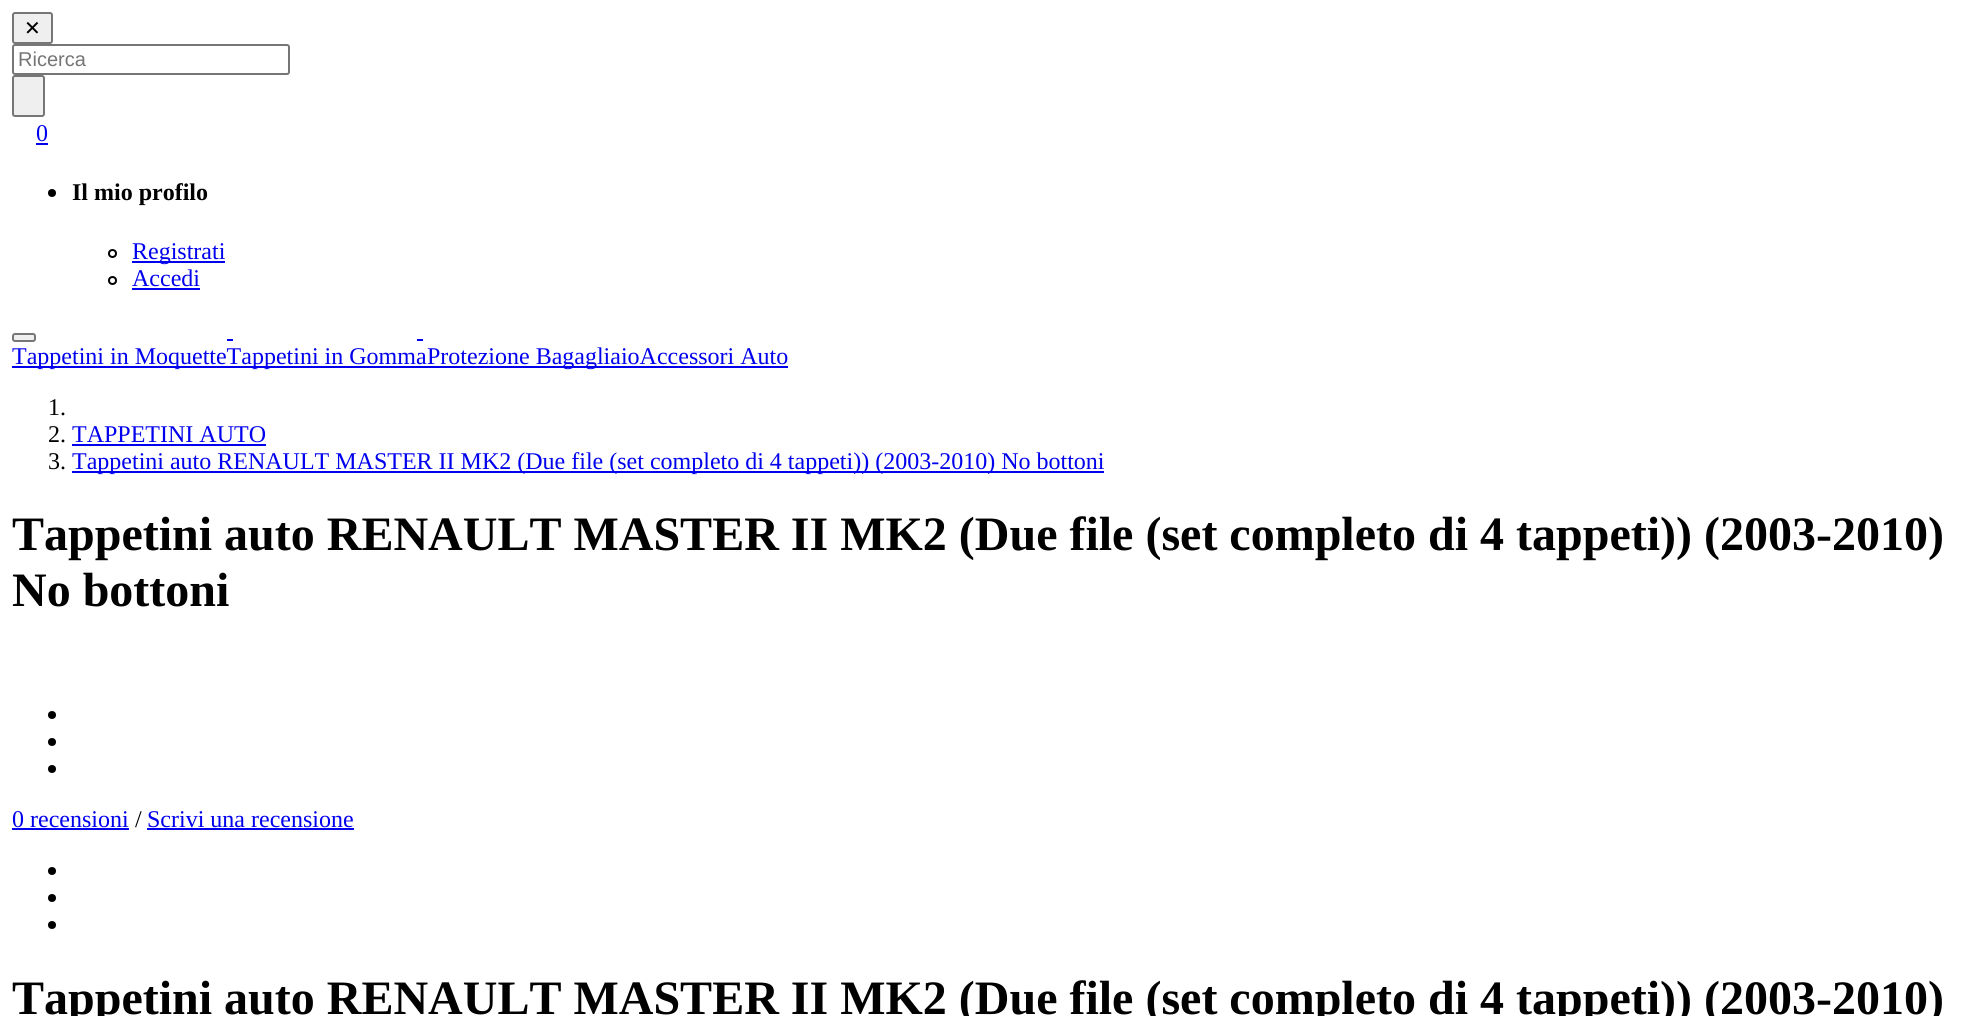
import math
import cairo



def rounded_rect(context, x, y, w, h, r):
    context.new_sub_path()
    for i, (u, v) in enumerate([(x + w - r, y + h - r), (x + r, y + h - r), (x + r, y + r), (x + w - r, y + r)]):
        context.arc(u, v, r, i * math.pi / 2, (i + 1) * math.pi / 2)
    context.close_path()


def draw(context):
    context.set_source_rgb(1, 1, 1)
    context.paint()
    context.set_source_rgb(239 / 255, 239 / 255, 239 / 255)
    rounded_rect(context, 13, 13, 39, 30, 2)
    context.fill_preserve()
    context.set_source_rgb(118 / 255, 118 / 255, 118 / 255)
    context.stroke()
    rounded_rect(context, 13, 45, 276, 29, 2)
    context.stroke()
    context.set_source_rgb(239 / 255, 239 / 255, 239 / 255)
    rounded_rect(context, 13, 76, 31, 40, 2)
    context.fill_preserve()
    context.set_source_rgb(118 / 255, 118 / 255, 118 / 255)
    context.stroke()
    context.set_source_rgb(0, 0, 238 / 255)
    context.rectangle(36, 143, 12, 2)
    context.fill()
    context.set_source_rgb(0, 0, 0)
    context.arc(52, 193, 4, 0, 2 * math.pi)
    context.fill()
    context.arc(112.5, 253.5, 3.5, 0, 2 * math.pi)
    context.stroke()
    context.set_source_rgb(0, 0, 238 / 255)
    context.rectangle(132, 261, 93, 2)
    context.fill()
    context.arc(112.5, 280.5, 3.5, 0, 2 * math.pi)
    context.set_source_rgb(0, 0, 0)
    context.stroke()
    context.set_source_rgb(0, 0, 238 / 255)
    context.rectangle(132, 288, 68, 2)
    context.fill()
    context.set_source_rgb(239 / 255, 239 / 255, 239 / 255)
    rounded_rect(context, 13, 334, 22, 7, 2)
    context.fill_preserve()
    context.set_source_rgb(118 / 255, 118 / 255, 118 / 255)
    context.stroke()
    context.set_source_rgb(0, 0, 238 / 255)
    context.rectangle(227, 339, 6, 2)
    context.fill()
    context.rectangle(417, 339, 6, 2)
    context.fill()
    context.rectangle(12, 366, 414, 2)
    context.fill()
    context.rectangle(426, 366, 362, 2)
    context.fill()
    context.rectangle(72, 444, 194, 2)
    context.fill()
    context.rectangle(72, 471, 1032, 2)
    context.fill()
    context.set_source_rgb(0, 0, 0)
    context.arc(52, 715, 4, 0, 2 * math.pi)
    context.fill()
    context.arc(52, 742, 4, 0, 2 * math.pi)
    context.fill()
    context.arc(52, 769, 4, 0, 2 * math.pi)
    context.fill()
    context.set_source_rgb(0, 0, 238 / 255)
    context.rectangle(12, 828, 117, 2)
    context.fill()
    context.rectangle(147, 828, 207, 2)
    context.fill()
    context.set_source_rgb(0, 0, 0)
    context.arc(52, 871, 4, 0, 2 * math.pi)
    context.fill()
    context.arc(52, 898, 4, 0, 2 * math.pi)
    context.fill()
    context.arc(52, 925, 4, 0, 2 * math.pi)
    context.fill()
    context.select_font_face("DejaVu Sans")
    context.set_font_size(20)
    context.move_to(24, 35)
    context.show_text("✕")
    context.select_font_face("Liberation Sans")
    context.set_source_rgb(117 / 255, 117 / 255, 117 / 255)
    context.move_to(18, 66)
    context.show_text("Ricerca")
    context.select_font_face("Liberation Serif")
    context.set_font_size(24)
    context.set_source_rgb(0, 0, 238 / 255)
    context.move_to(36, 141)
    context.show_text("0")
    context.select_font_face("Liberation Serif", cairo.FontSlant.NORMAL, cairo.FontWeight.BOLD)
    context.set_source_rgb(0, 0, 0)
    context.move_to(72, 200)
    context.show_text("Il mio profilo")
    context.select_font_face("Liberation Serif")
    context.set_source_rgb(0, 0, 238 / 255)
    context.move_to(132, 259)
    context.show_text("Registrati")
    context.move_to(132, 286)
    context.show_text("Accedi")
    context.move_to(12, 364)
    context.show_text("Tappetini in MoquetteTappetini in Gomma")
    context.move_to(427, 364)
    context.show_text("Protezione BagagliaioAccessori Auto")
    context.set_source_rgb(0, 0, 0)
    context.move_to(48, 415)
    context.show_text("1.")
    context.move_to(48, 442)
    context.show_text("2.")
    context.set_source_rgb(0, 0, 238 / 255)
    context.move_to(72, 442)
    context.show_text("TAPPETINI AUTO")
    context.set_source_rgb(0, 0, 0)
    context.move_to(48, 469)
    context.show_text("3.")
    context.set_source_rgb(0, 0, 238 / 255)
    context.move_to(72, 469)
    context.show_text("Tappetini auto RENAULT MASTER II MK2 (Due file (set completo di 4 tappeti)) (2003-2010) No bottoni")
    context.select_font_face("Liberation Serif", cairo.FontSlant.NORMAL, cairo.FontWeight.BOLD)
    context.set_font_size(48)
    context.set_source_rgb(0, 0, 0)
    context.move_to(12, 550)
    context.show_text("Tappetini auto RENAULT MASTER II MK2 (Due file (set completo di 4 tappeti)) (2003-2010)")
    context.move_to(12, 606)
    context.show_text("No bottoni")
    context.select_font_face("Liberation Serif")
    context.set_font_size(24)
    context.set_source_rgb(0, 0, 238 / 255)
    context.move_to(12, 827)
    context.show_text("0 recensioni")
    context.set_source_rgb(0, 0, 0)
    context.move_to(135, 827)
    context.show_text("/")
    context.set_source_rgb(0, 0, 238 / 255)
    context.move_to(147, 827)
    context.show_text("Scrivi una recensione")
    context.select_font_face("Liberation Serif", cairo.FontSlant.NORMAL, cairo.FontWeight.BOLD)
    context.set_font_size(48)
    context.set_source_rgb(0, 0, 0)
    context.move_to(12, 1014)
    context.show_text("Tappetini auto RENAULT MASTER II MK2 (Due file (set completo di 4 tappeti)) (2003-2010)")


surface = cairo.ImageSurface(cairo.Format.RGB24, 1982, 1016)
context = cairo.Context(surface)
options = cairo.FontOptions()
options.set_hint_metrics(cairo.HintMetrics.OFF)
options.set_hint_style(cairo.HintStyle.NONE)
context.set_font_options(options)
context.set_miter_limit(4)
draw(context)
surface.write_to_png("out.png")
